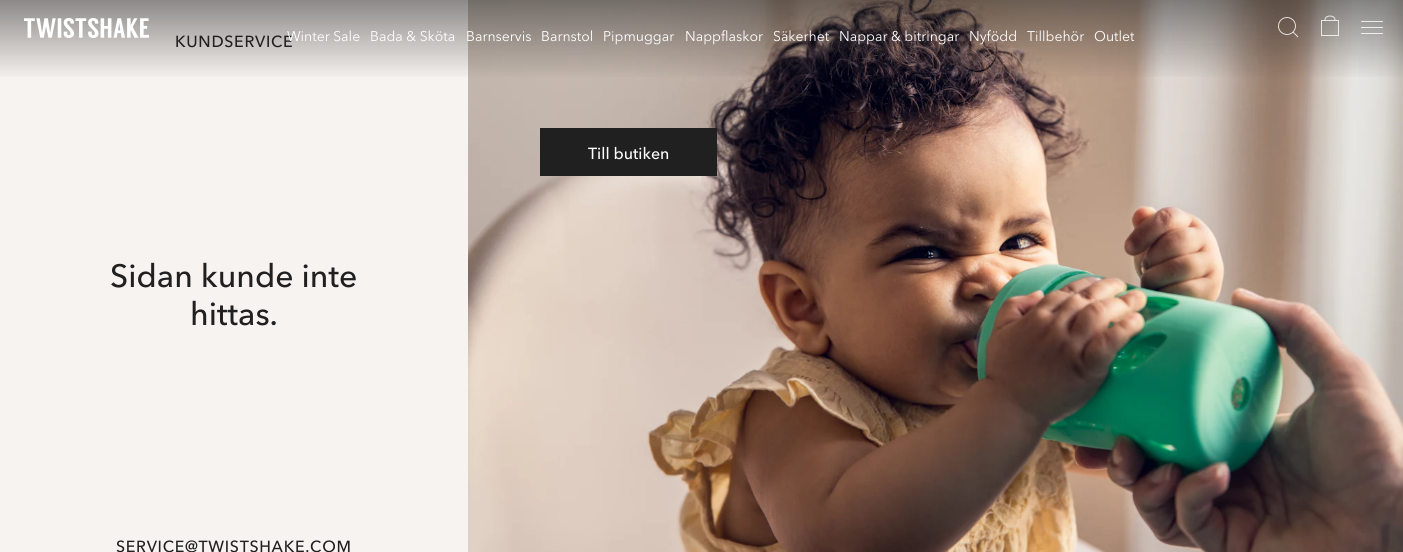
import math
import cairo



def draw_spaced(context, x, y, s, letter, word):
    context.move_to(x, y)
    for ch in s:
        context.show_text(ch)
        context.rel_move_to(letter + word * (ch == ' '), 0)


def draw_image(context, path, x, y, w, h):
    context.save()
    context.set_source_surface(cairo.ImageSurface.create_from_png(path), x, y)
    context.rectangle(x, y, w, h)
    context.fill()
    context.restore()


def draw(context):
    context.set_source_rgb(247 / 255, 243 / 255, 240 / 255)
    context.paint()
    draw_image(context, "images/4.png", 468, 0, 935, 552)
    context.set_source_rgb(32 / 255, 32 / 255, 32 / 255)
    context.rectangle(540, 128, 177, 48)
    context.fill()
    context.select_font_face("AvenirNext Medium")
    context.set_font_size(16)
    draw_spaced(context, 175, 47, "KUNDSERVICE", 0.7, 0)
    gradient = cairo.LinearGradient(702, 0, 702, 80)
    gradient.add_color_stop_rgba(0, 32 / 255, 32 / 255, 32 / 255, 0.5)
    gradient.add_color_stop_rgba(1, 32 / 255, 32 / 255, 32 / 255, 0)
    context.set_source(gradient)
    context.rectangle(0, 0, 1403, 77)
    context.fill()
    context.select_font_face("AvenirNext")
    context.set_font_size(14)
    context.set_source_rgb(1, 1, 1)
    context.move_to(1094, 41)
    context.show_text("Outlet")
    context.move_to(1027, 41)
    context.show_text("Tillbehör")
    context.move_to(969, 41)
    context.show_text("Nyfödd")
    context.move_to(839, 41)
    context.show_text("Nappar & bitringar")
    context.move_to(773, 41)
    context.show_text("Säkerhet")
    context.move_to(685, 41)
    context.show_text("Nappflaskor")
    context.move_to(603, 41)
    context.show_text("Pipmuggar")
    context.move_to(541, 41)
    context.show_text("Barnstol")
    context.move_to(466, 41)
    context.show_text("Barnservis")
    context.move_to(370, 41)
    context.show_text("Bada & Sköta")
    context.move_to(287, 41)
    context.show_text("Winter Sale")
    context.set_source_rgba(1, 1, 1, 0.8)
    context.rectangle(1361, 33, 22, 1)
    context.fill()
    context.rectangle(1361, 27, 22, 1)
    context.fill()
    context.rectangle(1361, 21, 22, 1)
    context.fill()
    draw_image(context, "images/3.png", 1321, 15, 18, 21)
    draw_image(context, "images/2.png", 1278, 17, 21, 21)
    draw_image(context, "images/1.png", 24, 18, 125, 20)
    context.select_font_face("AvenirNext Medium")
    context.set_font_size(32)
    context.set_source_rgb(32 / 255, 32 / 255, 32 / 255)
    context.move_to(110, 287)
    context.show_text("Sidan kunde inte")
    context.move_to(190, 325)
    context.show_text("hittas.")
    context.set_font_size(16)
    draw_spaced(context, 116, 552, "SERVICE@TWISTSHAKE.COM", 0.7, 0)
    context.set_source_rgb(1, 1, 1)
    context.move_to(588, 159)
    context.show_text("Till butiken")


surface = cairo.ImageSurface(cairo.Format.RGB24, 1403, 552)
context = cairo.Context(surface)
options = cairo.FontOptions()
options.set_hint_metrics(cairo.HintMetrics.OFF)
options.set_hint_style(cairo.HintStyle.NONE)
context.set_font_options(options)
context.set_miter_limit(4)
draw(context)
surface.write_to_png("out.png")
